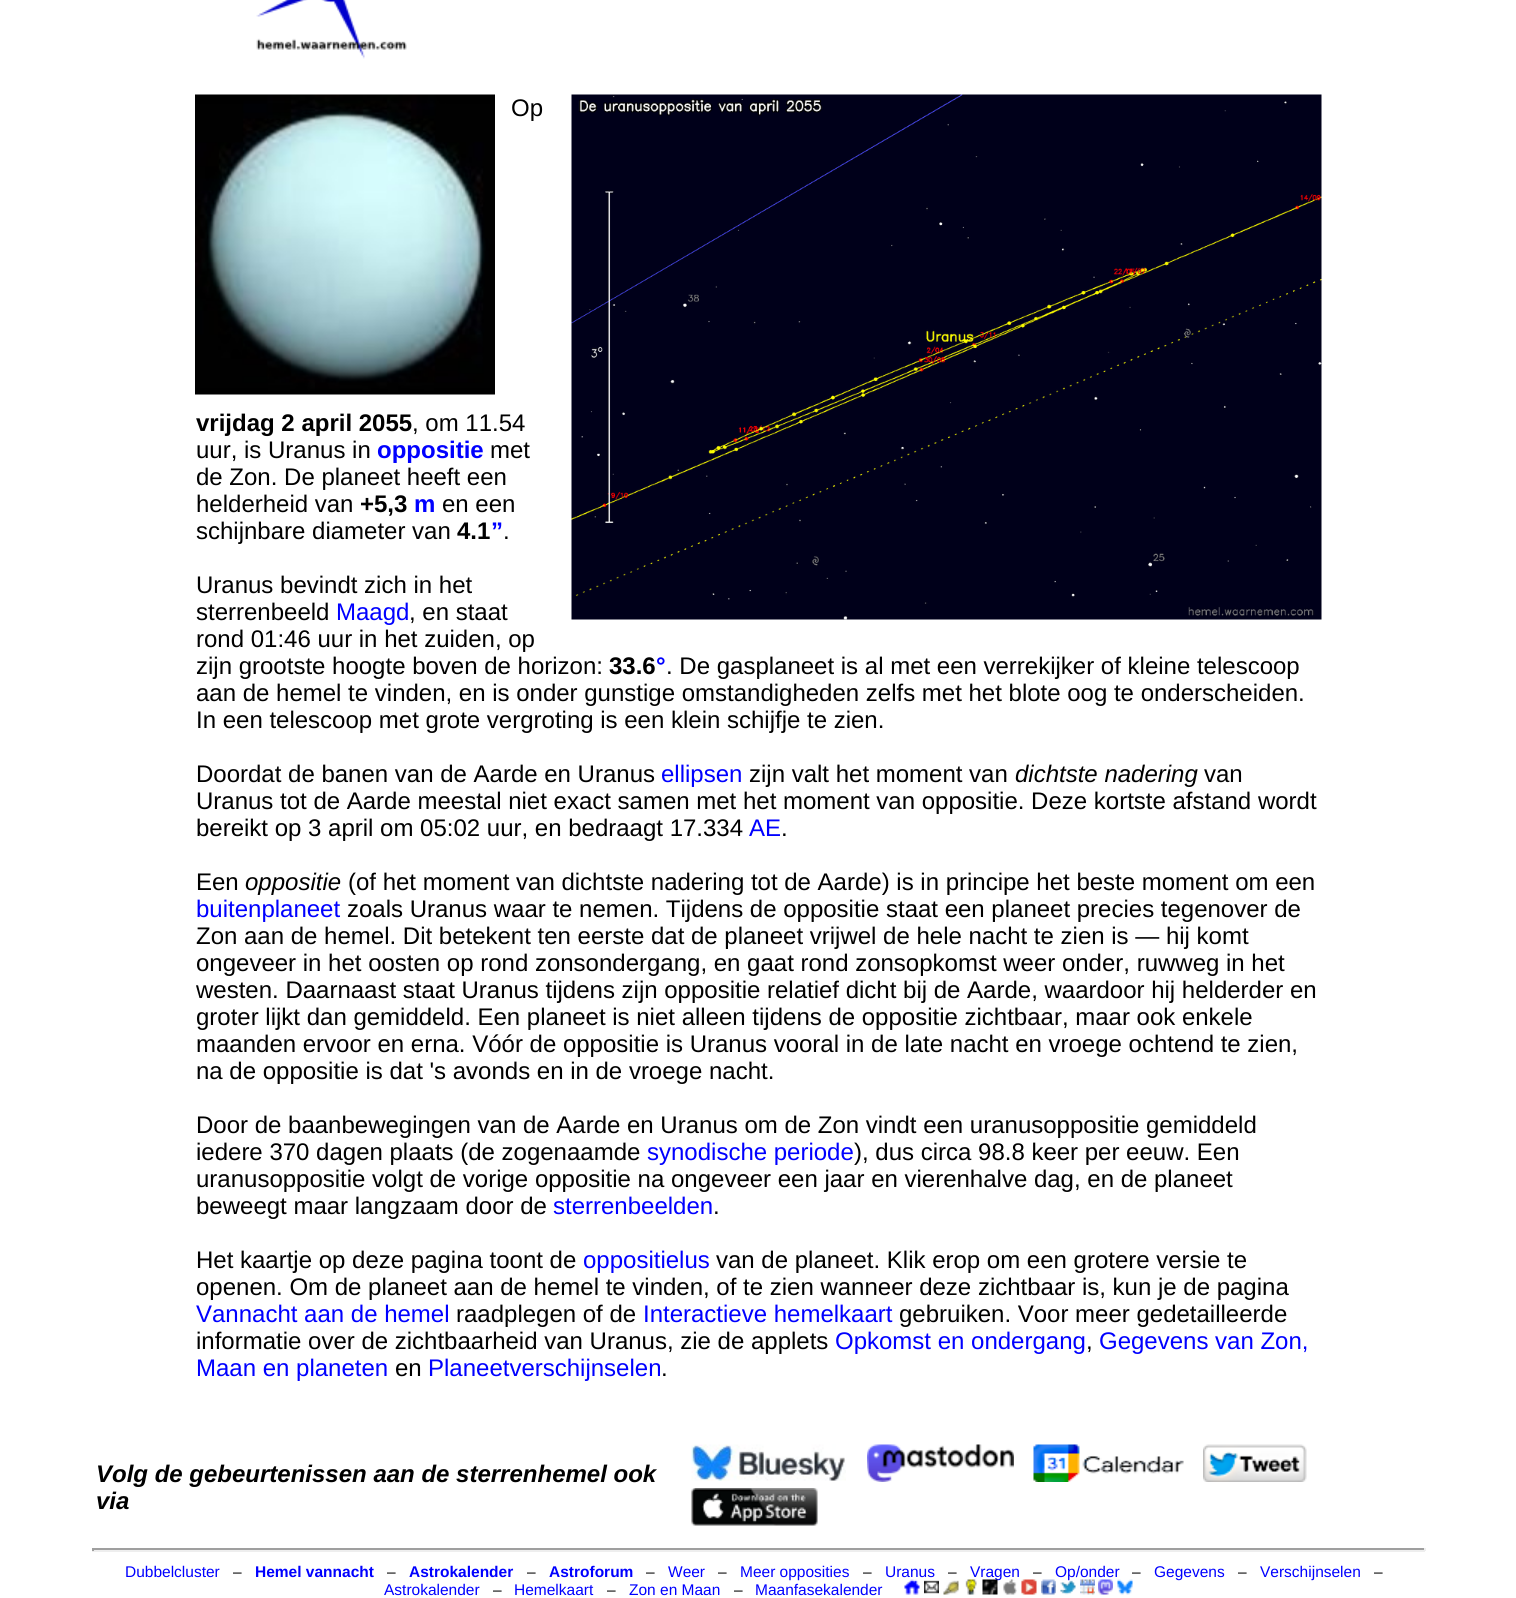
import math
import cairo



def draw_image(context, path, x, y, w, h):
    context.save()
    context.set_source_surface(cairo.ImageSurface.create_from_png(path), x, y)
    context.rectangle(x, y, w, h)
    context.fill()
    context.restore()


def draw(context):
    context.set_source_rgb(1, 1, 1)
    context.paint()
    draw_image(context, "images/1.png", 256, 0, 151, 59)
    draw_image(context, "images/2.png", 195, 94, 300, 301)
    draw_image(context, "images/3.png", 571, 94, 751, 526)
    draw_image(context, "images/4.png", 691, 1444, 155, 37)
    draw_image(context, "images/5.png", 867, 1444, 147, 38)
    draw_image(context, "images/6.png", 1033, 1444, 151, 38)
    draw_image(context, "images/7.png", 1203, 1444, 104, 38)
    draw_image(context, "images/8.png", 691, 1488, 127, 38)
    context.set_source_rgb(159 / 255, 159 / 255, 159 / 255)
    context.rectangle(92, 1548, 1333, 2)
    context.fill()
    context.set_source_rgb(238 / 255, 238 / 255, 238 / 255)
    context.rectangle(1424, 1548, 2, 3)
    context.fill()
    context.rectangle(92, 1550, 1333, 2)
    context.fill()
    context.set_source_rgb(159 / 255, 159 / 255, 159 / 255)
    context.rectangle(92, 1548, 2, 3)
    context.fill()
    draw_image(context, "images/9.png", 904, 1579, 16, 16)
    draw_image(context, "images/10.png", 924, 1580, 15, 14)
    draw_image(context, "images/11.png", 943, 1580, 16, 15)
    draw_image(context, "images/15.png", 1021, 1579, 16, 16)
    context.select_font_face("Liberation Sans")
    context.set_font_size(24)
    context.set_source_rgb(0, 0, 0)
    context.move_to(511, 116)
    context.show_text("Op")
    context.select_font_face("Liberation Sans", cairo.FontSlant.NORMAL, cairo.FontWeight.BOLD)
    context.move_to(196, 431)
    context.show_text("vrijdag 2 april 2055")
    context.select_font_face("Liberation Sans")
    context.move_to(412, 431)
    context.show_text(", om 11.54")
    context.move_to(196, 458)
    context.show_text("uur, is Uranus in")
    context.select_font_face("Liberation Sans", cairo.FontSlant.NORMAL, cairo.FontWeight.BOLD)
    context.set_source_rgb(0, 0, 1)
    context.move_to(377, 458)
    context.show_text("oppositie")
    context.select_font_face("Liberation Sans")
    context.set_source_rgb(0, 0, 0)
    context.move_to(490, 458)
    context.show_text("met")
    context.move_to(196, 485)
    context.show_text("de Zon. De planeet heeft een")
    context.move_to(196, 512)
    context.show_text("helderheid van")
    context.select_font_face("Liberation Sans", cairo.FontSlant.NORMAL, cairo.FontWeight.BOLD)
    context.move_to(360, 512)
    context.show_text("+5,3")
    context.set_source_rgb(0, 0, 1)
    context.move_to(414, 512)
    context.show_text("m")
    context.select_font_face("Liberation Sans")
    context.set_source_rgb(0, 0, 0)
    context.move_to(442, 512)
    context.show_text("en een")
    context.move_to(196, 539)
    context.show_text("schijnbare diameter van")
    context.select_font_face("Liberation Sans", cairo.FontSlant.NORMAL, cairo.FontWeight.BOLD)
    context.move_to(457, 539)
    context.show_text("4.1")
    context.set_source_rgb(0, 0, 1)
    context.move_to(491, 539)
    context.show_text("”")
    context.select_font_face("Liberation Sans")
    context.set_source_rgb(0, 0, 0)
    context.move_to(503, 539)
    context.show_text(".")
    context.move_to(196, 593)
    context.show_text("Uranus bevindt zich in het")
    context.move_to(196, 620)
    context.show_text("sterrenbeeld")
    context.set_source_rgb(0, 0, 1)
    context.move_to(336, 620)
    context.show_text("Maagd")
    context.set_source_rgb(0, 0, 0)
    context.move_to(409, 620)
    context.show_text(", en staat")
    context.move_to(196, 647)
    context.show_text("rond 01:46 uur in het zuiden, op")
    context.move_to(196, 674)
    context.show_text("zijn grootste hoogte boven de horizon:")
    context.select_font_face("Liberation Sans", cairo.FontSlant.NORMAL, cairo.FontWeight.BOLD)
    context.move_to(609, 674)
    context.show_text("33.6")
    context.set_source_rgb(0, 0, 1)
    context.move_to(656, 674)
    context.show_text("°")
    context.select_font_face("Liberation Sans")
    context.set_source_rgb(0, 0, 0)
    context.move_to(666, 674)
    context.show_text(". De gasplaneet is al met een verrekijker of kleine telescoop")
    context.move_to(196, 701)
    context.show_text("aan de hemel te vinden, en is onder gunstige omstandigheden zelfs met het blote oog te onderscheiden.")
    context.move_to(196, 728)
    context.show_text("In een telescoop met grote vergroting is een klein schijfje te zien.")
    context.move_to(196, 782)
    context.show_text("Doordat de banen van de Aarde en Uranus")
    context.set_source_rgb(0, 0, 1)
    context.move_to(661, 782)
    context.show_text("ellipsen")
    context.set_source_rgb(0, 0, 0)
    context.move_to(749, 782)
    context.show_text("zijn valt het moment van")
    context.select_font_face("Liberation Sans", cairo.FontSlant.ITALIC)
    context.move_to(1015, 782)
    context.show_text("dichtste nadering")
    context.select_font_face("Liberation Sans")
    context.move_to(1204, 782)
    context.show_text("van")
    context.move_to(196, 809)
    context.show_text("Uranus tot de Aarde meestal niet exact samen met het moment van oppositie. Deze kortste afstand wordt")
    context.move_to(196, 836)
    context.show_text("bereikt op 3 april om 05:02 uur, en bedraagt 17.334")
    context.set_source_rgb(0, 0, 1)
    context.move_to(749, 836)
    context.show_text("AE")
    context.set_source_rgb(0, 0, 0)
    context.move_to(781, 836)
    context.show_text(".")
    context.move_to(196, 890)
    context.show_text("Een")
    context.select_font_face("Liberation Sans", cairo.FontSlant.ITALIC)
    context.move_to(245, 890)
    context.show_text("oppositie")
    context.select_font_face("Liberation Sans")
    context.move_to(348, 890)
    context.show_text("(of het moment van dichtste nadering tot de Aarde) is in principe het beste moment om een")
    context.set_source_rgb(0, 0, 1)
    context.move_to(196, 917)
    context.show_text("buitenplaneet")
    context.set_source_rgb(0, 0, 0)
    context.move_to(347, 917)
    context.show_text("zoals Uranus waar te nemen. Tijdens de oppositie staat een planeet precies tegenover de")
    context.move_to(196, 944)
    context.show_text("Zon aan de hemel. Dit betekent ten eerste dat de planeet vrijwel de hele nacht te zien is — hij komt")
    context.move_to(196, 971)
    context.show_text("ongeveer in het oosten op rond zonsondergang, en gaat rond zonsopkomst weer onder, ruwweg in het")
    context.move_to(196, 998)
    context.show_text("westen. Daarnaast staat Uranus tijdens zijn oppositie relatief dicht bij de Aarde, waardoor hij helderder en")
    context.move_to(196, 1025)
    context.show_text("groter lijkt dan gemiddeld. Een planeet is niet alleen tijdens de oppositie zichtbaar, maar ook enkele")
    context.move_to(196, 1052)
    context.show_text("maanden ervoor en erna. Vóór de oppositie is Uranus vooral in de late nacht en vroege ochtend te zien,")
    context.move_to(196, 1079)
    context.show_text("na de oppositie is dat 's avonds en in de vroege nacht.")
    context.move_to(196, 1133)
    context.show_text("Door de baanbewegingen van de Aarde en Uranus om de Zon vindt een uranusoppositie gemiddeld")
    context.move_to(196, 1160)
    context.show_text("iedere 370 dagen plaats (de zogenaamde")
    context.set_source_rgb(0, 0, 1)
    context.move_to(647, 1160)
    context.show_text("synodische periode")
    context.set_source_rgb(0, 0, 0)
    context.move_to(854, 1160)
    context.show_text("), dus circa 98.8 keer per eeuw. Een")
    context.move_to(196, 1187)
    context.show_text("uranusoppositie volgt de vorige oppositie na ongeveer een jaar en vierenhalve dag, en de planeet")
    context.move_to(196, 1214)
    context.show_text("beweegt maar langzaam door de")
    context.set_source_rgb(0, 0, 1)
    context.move_to(553, 1214)
    context.show_text("sterrenbeelden")
    context.set_source_rgb(0, 0, 0)
    context.move_to(713, 1214)
    context.show_text(".")
    context.move_to(196, 1268)
    context.show_text("Het kaartje op deze pagina toont de")
    context.set_source_rgb(0, 0, 1)
    context.move_to(583, 1268)
    context.show_text("oppositielus")
    context.set_source_rgb(0, 0, 0)
    context.move_to(716, 1268)
    context.show_text("van de planeet. Klik erop om een grotere versie te")
    context.move_to(196, 1295)
    context.show_text("openen. Om de planeet aan de hemel te vinden, of te zien wanneer deze zichtbaar is, kun je de pagina")
    context.set_source_rgb(0, 0, 1)
    context.move_to(196, 1322)
    context.show_text("Vannacht aan de hemel")
    context.set_source_rgb(0, 0, 0)
    context.move_to(456, 1322)
    context.show_text("raadplegen of de")
    context.set_source_rgb(0, 0, 1)
    context.move_to(643, 1322)
    context.show_text("Interactieve hemelkaart")
    context.set_source_rgb(0, 0, 0)
    context.move_to(899, 1322)
    context.show_text("gebruiken. Voor meer gedetailleerde")
    context.move_to(196, 1349)
    context.show_text("informatie over de zichtbaarheid van Uranus, zie de applets")
    context.set_source_rgb(0, 0, 1)
    context.move_to(835, 1349)
    context.show_text("Opkomst en ondergang")
    context.set_source_rgb(0, 0, 0)
    context.move_to(1086, 1349)
    context.show_text(",")
    context.set_source_rgb(0, 0, 1)
    context.move_to(1099, 1349)
    context.show_text("Gegevens van Zon,")
    context.move_to(196, 1376)
    context.show_text("Maan en planeten")
    context.set_source_rgb(0, 0, 0)
    context.move_to(395, 1376)
    context.show_text("en")
    context.set_source_rgb(0, 0, 1)
    context.move_to(428, 1376)
    context.show_text("Planeetverschijnselen")
    context.set_source_rgb(0, 0, 0)
    context.move_to(661, 1376)
    context.show_text(".")
    context.select_font_face("Liberation Sans", cairo.FontSlant.ITALIC, cairo.FontWeight.BOLD)
    context.move_to(96, 1482)
    context.show_text("Volg de gebeurtenissen aan de sterrenhemel ook")
    context.move_to(96, 1509)
    context.show_text("via")
    context.select_font_face("Liberation Sans")
    context.set_font_size(15.5)
    context.set_source_rgb(0, 0, 1)
    context.move_to(125, 1577)
    context.show_text("Dubbelcluster")
    context.set_source_rgb(0, 0, 0)
    context.move_to(233, 1577)
    context.show_text("–")
    context.select_font_face("Liberation Sans", cairo.FontSlant.NORMAL, cairo.FontWeight.BOLD)
    context.set_source_rgb(0, 0, 1)
    context.move_to(255, 1577)
    context.show_text("Hemel vannacht")
    context.select_font_face("Liberation Sans")
    context.set_source_rgb(0, 0, 0)
    context.move_to(387, 1577)
    context.show_text("–")
    context.select_font_face("Liberation Sans", cairo.FontSlant.NORMAL, cairo.FontWeight.BOLD)
    context.set_source_rgb(0, 0, 1)
    context.move_to(409, 1577)
    context.show_text("Astrokalender")
    context.select_font_face("Liberation Sans")
    context.set_source_rgb(0, 0, 0)
    context.move_to(527, 1577)
    context.show_text("–")
    context.select_font_face("Liberation Sans", cairo.FontSlant.NORMAL, cairo.FontWeight.BOLD)
    context.set_source_rgb(0, 0, 1)
    context.move_to(549, 1577)
    context.show_text("Astroforum")
    context.select_font_face("Liberation Sans")
    context.set_source_rgb(0, 0, 0)
    context.move_to(646, 1577)
    context.show_text("–")
    context.set_source_rgb(0, 0, 1)
    context.move_to(668, 1577)
    context.show_text("Weer")
    context.set_source_rgb(0, 0, 0)
    context.move_to(718, 1577)
    context.show_text("–")
    context.set_source_rgb(0, 0, 1)
    context.move_to(740, 1577)
    context.show_text("Meer opposities")
    context.set_source_rgb(0, 0, 0)
    context.move_to(863, 1577)
    context.show_text("–")
    context.set_source_rgb(0, 0, 1)
    context.move_to(885, 1577)
    context.show_text("Uranus")
    context.set_source_rgb(0, 0, 0)
    context.move_to(948, 1577)
    context.show_text("–")
    context.set_source_rgb(0, 0, 1)
    context.move_to(970, 1577)
    context.show_text("Vragen")
    context.set_source_rgb(0, 0, 0)
    context.move_to(1033, 1577)
    context.show_text("–")
    context.set_source_rgb(0, 0, 1)
    context.move_to(1055, 1577)
    context.show_text("Op/onder")
    context.set_source_rgb(0, 0, 0)
    context.move_to(1132, 1577)
    context.show_text("–")
    context.set_source_rgb(0, 0, 1)
    context.move_to(1154, 1577)
    context.show_text("Gegevens")
    context.set_source_rgb(0, 0, 0)
    context.move_to(1238, 1577)
    context.show_text("–")
    context.set_source_rgb(0, 0, 1)
    context.move_to(1260, 1577)
    context.show_text("Verschijnselen")
    context.set_source_rgb(0, 0, 0)
    context.move_to(1374, 1577)
    context.show_text("–")
    context.set_source_rgb(0, 0, 1)
    context.move_to(384, 1595)
    context.show_text("Astrokalender")
    context.set_source_rgb(0, 0, 0)
    context.move_to(493, 1595)
    context.show_text("–")
    context.set_source_rgb(0, 0, 1)
    context.move_to(514, 1595)
    context.show_text("Hemelkaart")
    context.set_source_rgb(0, 0, 0)
    context.move_to(607, 1595)
    context.show_text("–")
    context.set_source_rgb(0, 0, 1)
    context.move_to(629, 1595)
    context.show_text("Zon en Maan")
    context.set_source_rgb(0, 0, 0)
    context.move_to(734, 1595)
    context.show_text("–")
    context.set_source_rgb(0, 0, 1)
    context.move_to(755, 1595)
    context.show_text("Maanfasekalender")
    draw_image(context, "images/12.png", 965, 1579, 12, 16)
    draw_image(context, "images/13.png", 982, 1579, 16, 16)
    draw_image(context, "images/14.png", 1003, 1579, 14, 16)
    draw_image(context, "images/16.png", 1041, 1579, 15, 16)
    draw_image(context, "images/17.png", 1060, 1580, 16, 15)
    draw_image(context, "images/18.png", 1080, 1579, 15, 16)
    draw_image(context, "images/19.png", 1098, 1579, 15, 16)
    draw_image(context, "images/20.png", 1117, 1579, 16, 16)


surface = cairo.ImageSurface(cairo.Format.RGB24, 1516, 1598)
context = cairo.Context(surface)
options = cairo.FontOptions()
options.set_hint_metrics(cairo.HintMetrics.OFF)
options.set_hint_style(cairo.HintStyle.NONE)
context.set_font_options(options)
context.set_miter_limit(4)
draw(context)
surface.write_to_png("out.png")
